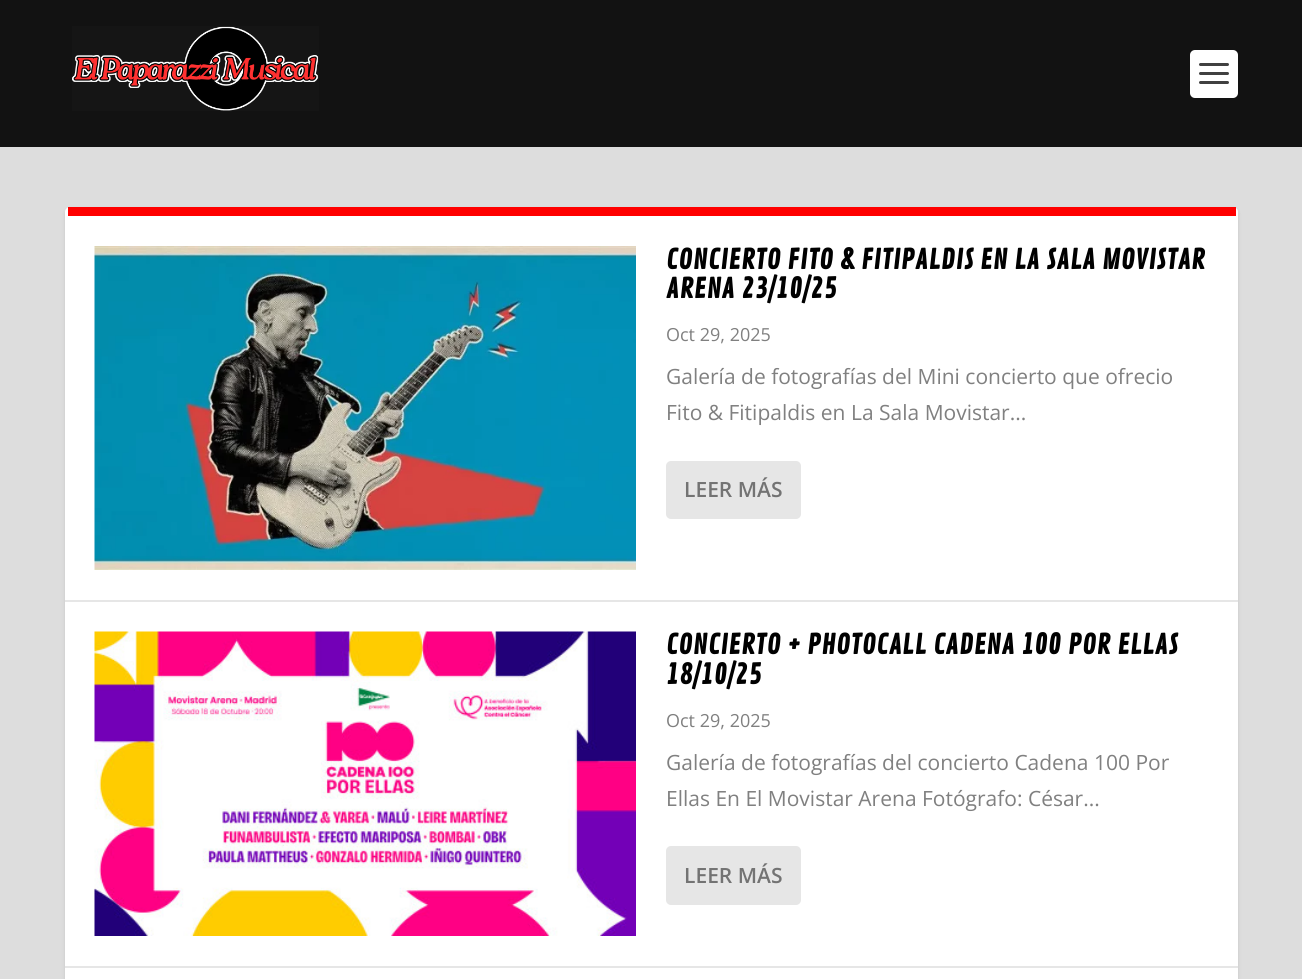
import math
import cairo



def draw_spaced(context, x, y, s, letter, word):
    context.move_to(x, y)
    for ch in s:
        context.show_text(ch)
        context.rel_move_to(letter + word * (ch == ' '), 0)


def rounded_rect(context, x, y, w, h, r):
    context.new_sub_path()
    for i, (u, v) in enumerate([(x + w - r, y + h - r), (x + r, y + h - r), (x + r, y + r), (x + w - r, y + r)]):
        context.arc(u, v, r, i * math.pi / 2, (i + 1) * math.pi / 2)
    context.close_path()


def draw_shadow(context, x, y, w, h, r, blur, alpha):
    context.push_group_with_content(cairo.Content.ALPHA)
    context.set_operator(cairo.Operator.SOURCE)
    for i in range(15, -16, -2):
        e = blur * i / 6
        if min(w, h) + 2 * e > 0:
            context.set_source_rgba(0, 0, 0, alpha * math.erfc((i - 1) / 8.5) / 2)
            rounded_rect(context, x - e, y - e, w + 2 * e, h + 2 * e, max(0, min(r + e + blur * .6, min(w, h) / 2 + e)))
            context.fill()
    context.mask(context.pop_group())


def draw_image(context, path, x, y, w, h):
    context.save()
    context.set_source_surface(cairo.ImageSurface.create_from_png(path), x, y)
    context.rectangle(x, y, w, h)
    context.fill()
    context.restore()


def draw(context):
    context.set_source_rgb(221 / 255, 221 / 255, 221 / 255)
    context.paint()
    context.set_source_rgb(18 / 255, 18 / 255, 18 / 255)
    context.rectangle(0, 0, 1302, 147)
    context.fill()
    draw_image(context, "images/1.png", 72, 26, 247, 85)
    context.set_source_rgb(1, 1, 1)
    rounded_rect(context, 1190, 50, 48, 48, 5)
    context.fill()
    context.set_source_rgb(64 / 255, 64 / 255, 64 / 255)
    rounded_rect(context, 1199, 63, 30, 3, 1.5)
    context.fill()
    rounded_rect(context, 1199, 72, 30, 3, 1.5)
    context.fill()
    rounded_rect(context, 1199, 81, 30, 3, 1.5)
    context.fill()
    context.set_source_rgb(0, 0, 0)
    draw_shadow(context, 65, 209, 1173, 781, 5, 2, 0.1)
    context.set_source_rgb(1, 1, 1)
    rounded_rect(context, 65, 207, 1173, 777, 5)
    context.fill()
    context.set_source_rgb(1, 0, 0)
    context.rectangle(68, 207, 1168, 9)
    context.fill()
    context.set_source_rgb(230 / 255, 230 / 255, 230 / 255)
    context.rectangle(65, 600, 1173, 2)
    context.fill()
    draw_image(context, "images/2.png", 94, 246, 542, 324)
    rounded_rect(context, 666, 461, 135, 58, 5)
    context.fill()
    context.rectangle(65, 966, 1173, 2)
    context.fill()
    draw_image(context, "images/3.png", 94, 631, 542, 305)
    rounded_rect(context, 666, 846, 135, 59, 5)
    context.fill()
    context.select_font_face("Contrail One", cairo.FontSlant.NORMAL, cairo.FontWeight.BOLD)
    context.set_font_size(27)
    context.set_source_rgb(0, 0, 0)
    draw_spaced(context, 666, 269, "CONCIERTO FITO & FITIPALDIS EN LA SALA MOVISTAR", 0.75, 0)
    draw_spaced(context, 666, 298, "ARENA 23/10/25", 0.75, 0)
    context.select_font_face("Open Sans")
    context.set_font_size(18)
    context.set_source_rgb(128 / 255, 128 / 255, 128 / 255)
    context.move_to(666, 341)
    context.show_text("Oct 29, 2025")
    context.set_font_size(21)
    context.move_to(666, 384)
    context.show_text("Galería de fotografías del Mini concierto que ofrecio")
    context.move_to(666, 420)
    context.show_text("Fito & Fitipaldis en La Sala Movistar...")
    context.select_font_face("Open Sans SemiBold")
    context.set_source_rgb(115 / 255, 115 / 255, 115 / 255)
    context.move_to(684, 497)
    context.show_text("LEER MÁS")
    context.select_font_face("Contrail One", cairo.FontSlant.NORMAL, cairo.FontWeight.BOLD)
    context.set_font_size(27)
    context.set_source_rgb(0, 0, 0)
    draw_spaced(context, 666, 654, "CONCIERTO + PHOTOCALL CADENA 100 POR ELLAS", 0.75, 0)
    draw_spaced(context, 666, 684, "18/10/25", 0.75, 0)
    context.select_font_face("Open Sans")
    context.set_font_size(18)
    context.set_source_rgb(128 / 255, 128 / 255, 128 / 255)
    context.move_to(666, 727)
    context.show_text("Oct 29, 2025")
    context.set_font_size(21)
    context.move_to(666, 770)
    context.show_text("Galería de fotografías del concierto Cadena 100 Por")
    context.move_to(666, 806)
    context.show_text("Ellas En El Movistar Arena Fotógrafo: César...")
    context.select_font_face("Open Sans SemiBold")
    context.set_source_rgb(115 / 255, 115 / 255, 115 / 255)
    context.move_to(684, 883)
    context.show_text("LEER MÁS")


surface = cairo.ImageSurface(cairo.Format.RGB24, 1302, 979)
context = cairo.Context(surface)
options = cairo.FontOptions()
options.set_hint_metrics(cairo.HintMetrics.OFF)
options.set_hint_style(cairo.HintStyle.NONE)
context.set_font_options(options)
context.set_miter_limit(4)
draw(context)
surface.write_to_png("out.png")
